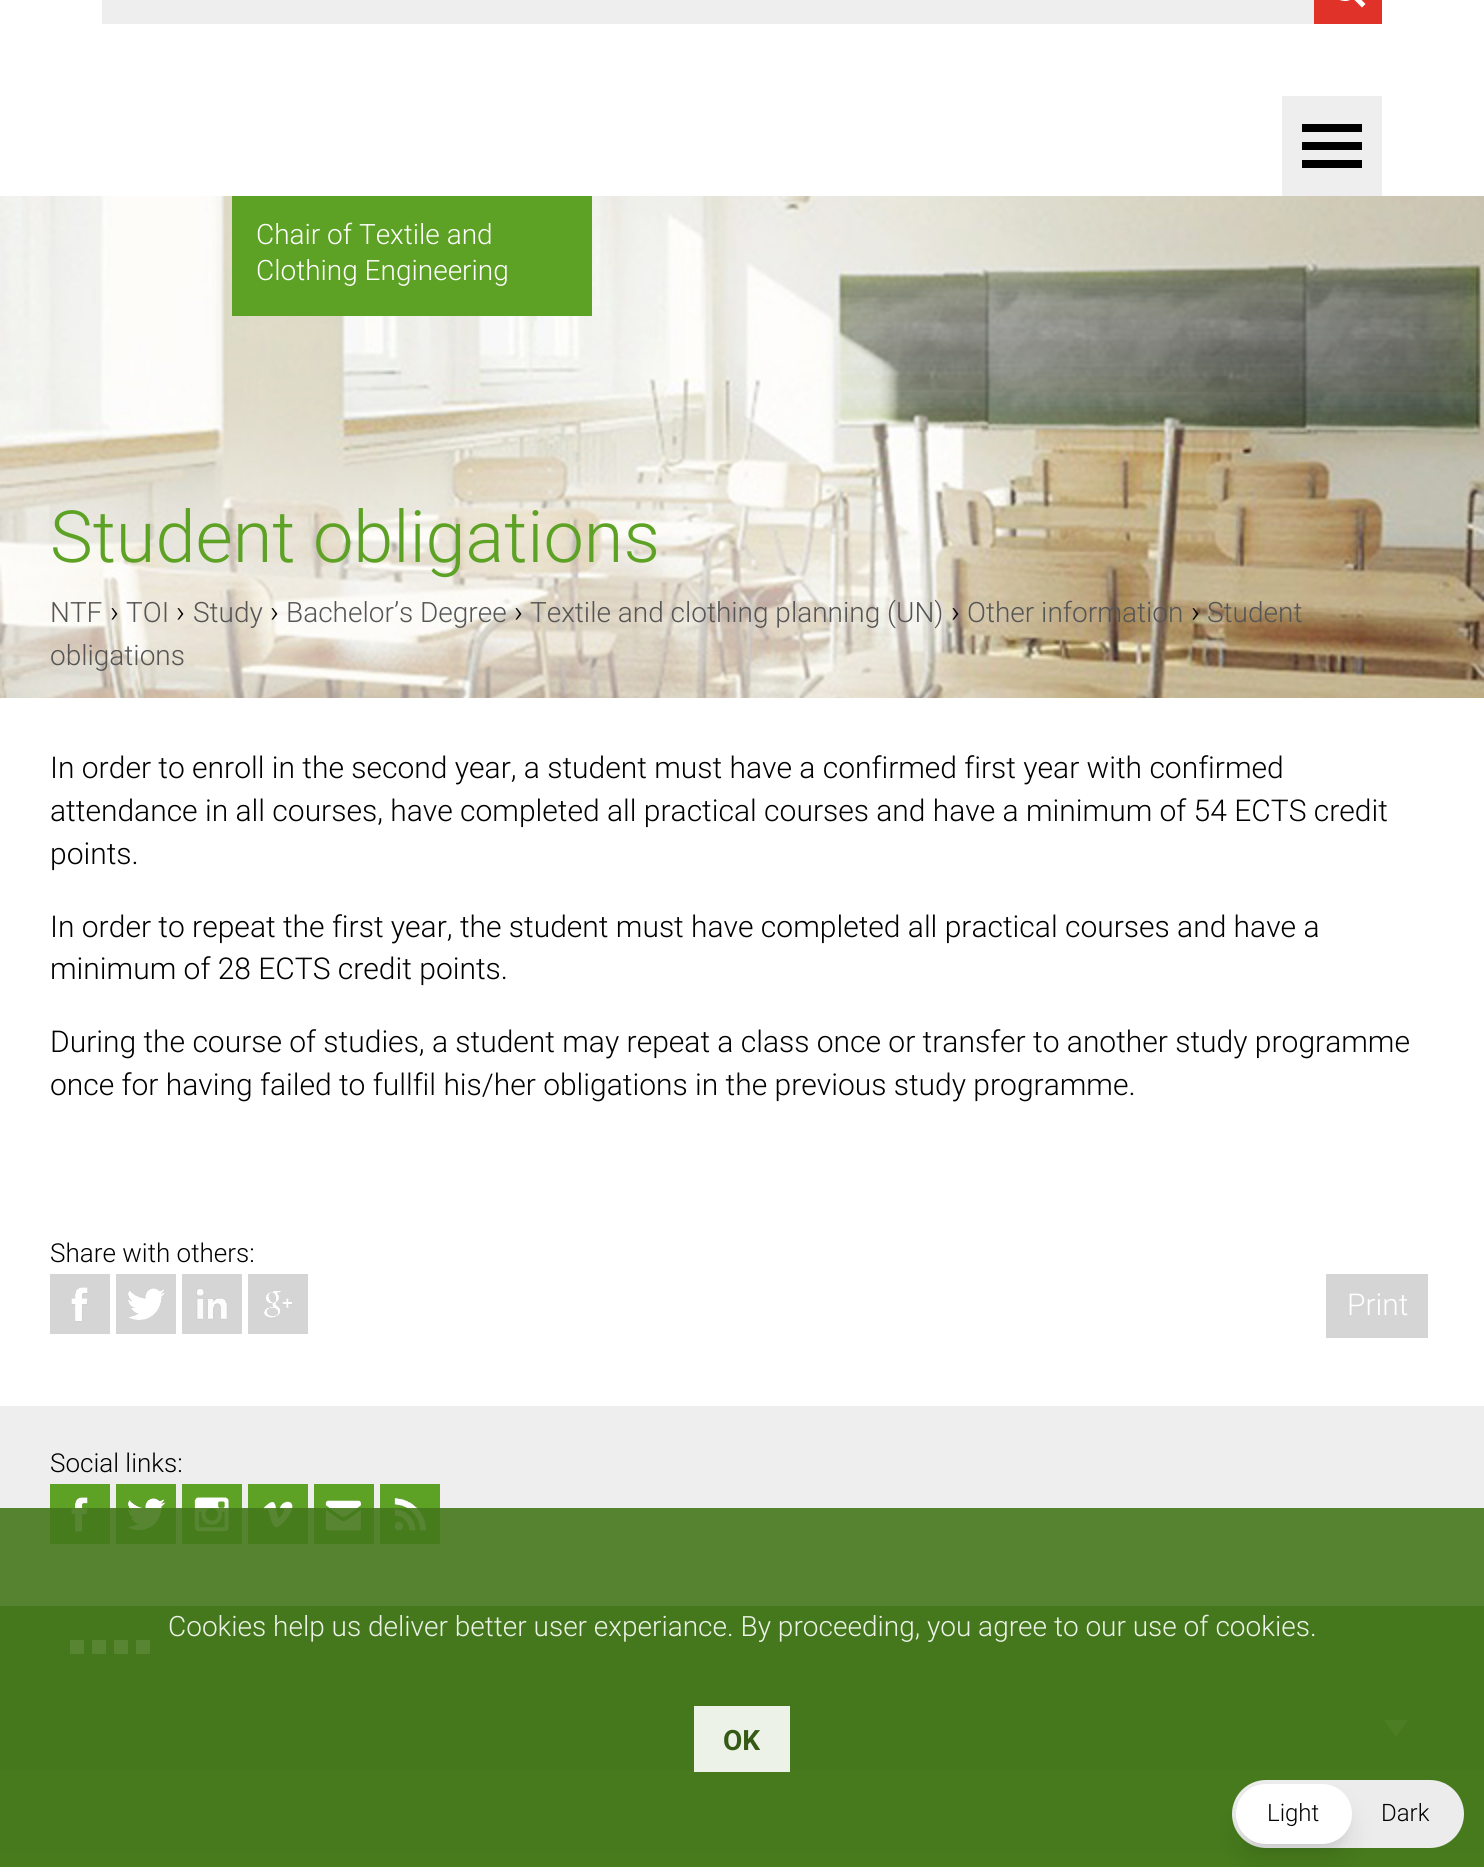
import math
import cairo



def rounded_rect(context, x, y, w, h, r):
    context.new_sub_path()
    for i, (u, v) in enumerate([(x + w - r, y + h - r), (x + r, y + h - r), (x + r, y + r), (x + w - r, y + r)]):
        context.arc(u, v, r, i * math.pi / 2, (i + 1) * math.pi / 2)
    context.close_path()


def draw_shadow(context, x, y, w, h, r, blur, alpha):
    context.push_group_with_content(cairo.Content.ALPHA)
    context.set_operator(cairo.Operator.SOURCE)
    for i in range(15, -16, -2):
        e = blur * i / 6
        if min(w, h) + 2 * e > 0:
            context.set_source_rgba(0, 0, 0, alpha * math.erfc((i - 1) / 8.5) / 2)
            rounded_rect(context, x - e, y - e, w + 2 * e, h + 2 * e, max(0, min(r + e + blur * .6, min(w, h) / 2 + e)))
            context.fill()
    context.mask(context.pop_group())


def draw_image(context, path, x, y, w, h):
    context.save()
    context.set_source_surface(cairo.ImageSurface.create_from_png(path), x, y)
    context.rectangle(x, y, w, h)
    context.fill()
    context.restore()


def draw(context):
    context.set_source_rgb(1, 1, 1)
    context.paint()
    draw_image(context, "images/1.png", 0, 196, 1484, 502)
    context.set_source_rgb(238 / 255, 238 / 255, 238 / 255)
    context.rectangle(102, 0, 1212, 24)
    context.fill()
    context.set_source_rgb(224 / 255, 50 / 255, 40 / 255)
    context.rectangle(1314, 0, 68, 24)
    context.fill()
    context.set_source_rgb(1, 1, 1)
    context.new_path()
    context.move_to(1365.5, 4)
    context.line_to(1356.5, -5)
    context.curve_to(1366.5, -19, 1347.5, -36, 1334.5, -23.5)
    context.curve_to(1322, -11, 1339, 8, 1353, -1.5)
    context.line_to(1362, 7.5)
    context.close_path()
    context.move_to(1334.5, -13.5)
    context.curve_to(1334.5, -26.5, 1355, -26.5, 1355, -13.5)
    context.curve_to(1355, 0, 1334.5, 0, 1334.5, -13.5)
    context.close_path()
    context.fill()
    context.set_source_rgb(238 / 255, 238 / 255, 238 / 255)
    context.rectangle(1282, 96, 100, 100)
    context.fill()
    context.set_source_rgb(0, 0, 0)
    context.rectangle(1302, 124, 60, 8)
    context.fill()
    context.rectangle(1302, 142, 60, 8)
    context.fill()
    context.rectangle(1302, 160, 60, 8)
    context.fill()
    context.set_source_rgb(93 / 255, 162 / 255, 37 / 255)
    context.rectangle(232, 196, 360, 120)
    context.fill()
    context.set_source_rgb(213 / 255, 213 / 255, 213 / 255)
    context.rectangle(50, 1274, 60, 60)
    context.fill()
    draw_image(context, "images/2.png", 71, 1287, 17, 35)
    context.rectangle(116, 1274, 60, 60)
    context.fill()
    draw_image(context, "images/3.png", 127, 1288, 38, 32)
    context.rectangle(182, 1274, 60, 60)
    context.fill()
    draw_image(context, "images/4.png", 196, 1288, 32, 32)
    context.rectangle(248, 1274, 60, 60)
    context.fill()
    draw_image(context, "images/5.png", 264, 1291, 28, 27)
    context.rectangle(1326, 1274, 102, 64)
    context.fill()
    context.set_source_rgb(238 / 255, 238 / 255, 238 / 255)
    context.rectangle(0, 1406, 1484, 200)
    context.fill()
    context.set_source_rgb(93 / 255, 162 / 255, 37 / 255)
    context.rectangle(50, 1484, 60, 60)
    context.fill()
    draw_image(context, "images/6.png", 71, 1497, 17, 35)
    context.rectangle(116, 1484, 60, 60)
    context.fill()
    draw_image(context, "images/7.png", 127, 1498, 39, 32)
    context.rectangle(182, 1484, 60, 60)
    context.fill()
    draw_image(context, "images/8.png", 194, 1497, 35, 35)
    context.rectangle(248, 1484, 60, 60)
    context.fill()
    draw_image(context, "images/9.png", 263, 1501, 30, 27)
    context.rectangle(314, 1484, 60, 60)
    context.fill()
    draw_image(context, "images/10.png", 325, 1500, 36, 31)
    context.rectangle(380, 1484, 60, 60)
    context.fill()
    draw_image(context, "images/11.png", 394, 1498, 32, 33)
    context.set_source_rgb(69 / 255, 120 / 255, 28 / 255)
    context.rectangle(0, 1606, 1484, 164)
    context.fill()
    context.set_source_rgb(1, 1, 1)
    context.rectangle(70, 1640, 14, 14)
    context.fill()
    context.rectangle(92, 1640, 14, 14)
    context.fill()
    context.rectangle(114, 1640, 14, 14)
    context.fill()
    context.rectangle(136, 1640, 14, 14)
    context.fill()
    draw_image(context, "images/12.png", 1384, 1720, 24, 18)
    context.set_source_rgb(81 / 255, 141 / 255, 32 / 255)
    context.rectangle(0, 1770, 1484, 84)
    context.fill()
    context.set_source_rgb(88 / 255, 154 / 255, 35 / 255)
    context.rectangle(0, 1854, 1484, 13)
    context.fill()
    context.set_source_rgba(69 / 255, 120 / 255, 28 / 255, 0.9)
    context.rectangle(0, 1508, 1484, 359)
    context.fill()
    context.set_source_rgb(236 / 255, 242 / 255, 232 / 255)
    context.rectangle(694, 1706, 96, 66)
    context.fill()
    context.set_source_rgb(236 / 255, 236 / 255, 236 / 255)
    rounded_rect(context, 1232, 1780, 232, 68, 34)
    context.fill()
    context.set_source_rgb(0, 0, 0)
    draw_shadow(context, 1244, 1800, 100, 44, 22, 6, 0.1)
    draw_shadow(context, 1242, 1810, 104, 48, 24, 15, 0.1)
    context.set_source_rgb(1, 1, 1)
    rounded_rect(context, 1236, 1784, 116, 60, 30)
    context.fill()
    context.select_font_face("Roboto Light")
    context.set_font_size(28)
    context.move_to(256, 244)
    context.show_text("Chair of Textile and")
    context.move_to(256, 280)
    context.show_text("Clothing Engineering")
    context.set_font_size(72)
    context.set_source_rgb(93 / 255, 162 / 255, 37 / 255)
    context.move_to(50, 562)
    context.show_text("Student obligations")
    context.set_font_size(28)
    context.set_source_rgb(85 / 255, 85 / 255, 85 / 255)
    context.move_to(50, 622)
    context.show_text("NTF")
    context.set_font_size(30)
    context.set_source_rgb(0, 0, 0)
    context.move_to(110, 622)
    context.show_text("›")
    context.set_font_size(28)
    context.set_source_rgb(85 / 255, 85 / 255, 85 / 255)
    context.move_to(126, 622)
    context.show_text("TOI")
    context.set_font_size(30)
    context.set_source_rgb(0, 0, 0)
    context.move_to(176, 622)
    context.show_text("›")
    context.set_font_size(28)
    context.set_source_rgb(85 / 255, 85 / 255, 85 / 255)
    context.move_to(193, 622)
    context.show_text("Study")
    context.set_font_size(30)
    context.set_source_rgb(0, 0, 0)
    context.move_to(270, 622)
    context.show_text("›")
    context.set_font_size(28)
    context.set_source_rgb(85 / 255, 85 / 255, 85 / 255)
    context.move_to(286, 622)
    context.show_text("Bachelor’s Degree")
    context.set_font_size(30)
    context.set_source_rgb(0, 0, 0)
    context.move_to(514, 622)
    context.show_text("›")
    context.set_font_size(28)
    context.set_source_rgb(85 / 255, 85 / 255, 85 / 255)
    context.move_to(530, 622)
    context.show_text("Textile and clothing planning (UN)")
    context.set_font_size(30)
    context.set_source_rgb(0, 0, 0)
    context.move_to(951, 622)
    context.show_text("›")
    context.set_font_size(28)
    context.set_source_rgb(85 / 255, 85 / 255, 85 / 255)
    context.move_to(967, 622)
    context.show_text("Other information")
    context.set_font_size(30)
    context.set_source_rgb(0, 0, 0)
    context.move_to(1191, 622)
    context.show_text("›")
    context.set_font_size(28)
    context.set_source_rgb(85 / 255, 85 / 255, 85 / 255)
    context.move_to(1207, 622)
    context.show_text("Student")
    context.move_to(50, 665)
    context.show_text("obligations")
    context.set_font_size(30)
    context.set_source_rgb(0, 0, 0)
    context.move_to(50, 778)
    context.show_text("In order to enroll in the second year, a student must have a confirmed first year with confirmed")
    context.move_to(50, 821)
    context.show_text("attendance in all courses, have completed all practical courses and have a minimum of 54 ECTS credit")
    context.move_to(50, 864)
    context.show_text("points.")
    context.move_to(50, 937)
    context.show_text("In order to repeat the first year, the student must have completed all practical courses and have a")
    context.move_to(50, 979)
    context.show_text("minimum of 28 ECTS credit points.")
    context.move_to(50, 1052)
    context.show_text("During the course of studies, a student may repeat a class once or transfer to another study programme")
    context.move_to(50, 1095)
    context.show_text("once for having failed to fullfil his/her obligations in the previous study programme.")
    context.set_font_size(26)
    context.move_to(50, 1262)
    context.show_text("Share with others:")
    context.set_font_size(30)
    context.set_source_rgb(1, 1, 1)
    context.move_to(1347, 1315)
    context.show_text("Print")
    context.set_font_size(26)
    context.set_source_rgb(0, 0, 0)
    context.move_to(50, 1472)
    context.show_text("Social links:")
    context.set_font_size(28)
    context.set_source_rgb(236 / 255, 242 / 255, 232 / 255)
    context.move_to(168, 1636)
    context.show_text("Cookies help us deliver better user experiance. By proceeding, you agree to our use of cookies.")
    context.select_font_face("Roboto", cairo.FontSlant.NORMAL, cairo.FontWeight.BOLD)
    context.set_source_rgb(52 / 255, 90 / 255, 21 / 255)
    context.move_to(723, 1750)
    context.show_text("OK")
    context.select_font_face("Roboto Light")
    context.set_font_size(24)
    context.set_source_rgb(0, 0, 0)
    context.move_to(1267, 1821)
    context.show_text("Light")
    context.move_to(1381, 1821)
    context.show_text("Dark")


surface = cairo.ImageSurface(cairo.Format.RGB24, 1484, 1867)
context = cairo.Context(surface)
options = cairo.FontOptions()
options.set_hint_metrics(cairo.HintMetrics.OFF)
options.set_hint_style(cairo.HintStyle.NONE)
context.set_font_options(options)
context.set_miter_limit(4)
draw(context)
surface.write_to_png("out.png")
